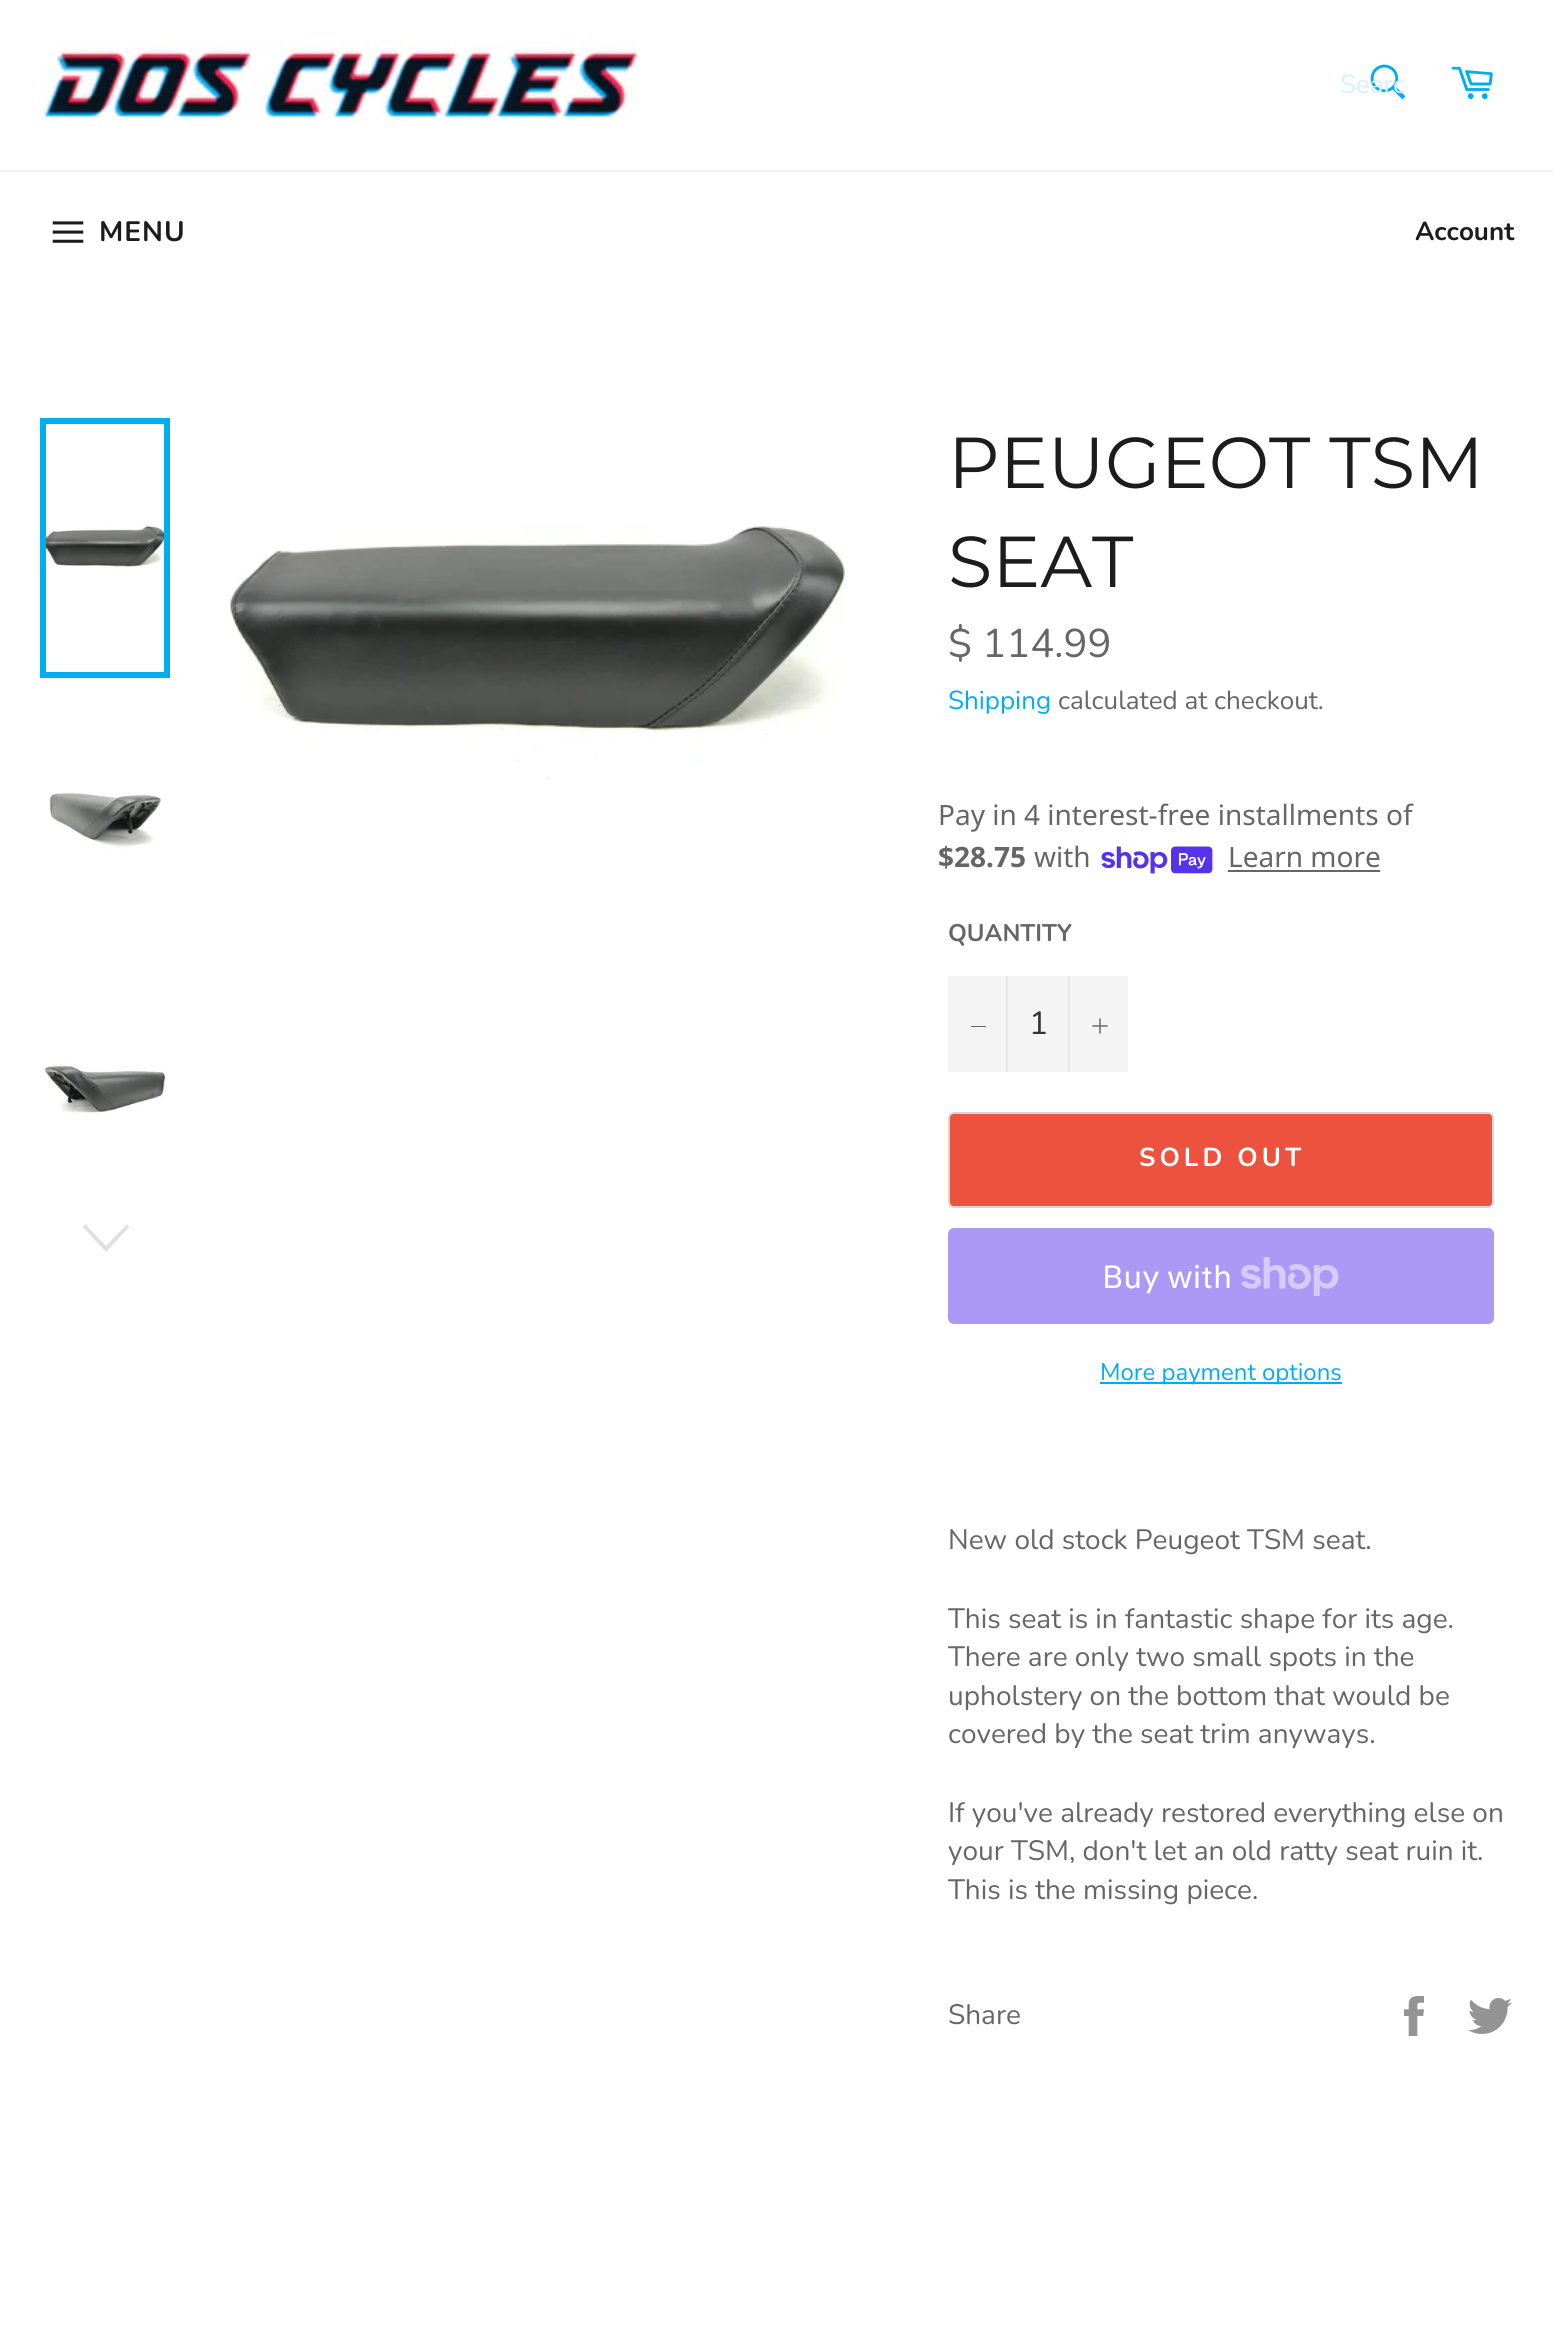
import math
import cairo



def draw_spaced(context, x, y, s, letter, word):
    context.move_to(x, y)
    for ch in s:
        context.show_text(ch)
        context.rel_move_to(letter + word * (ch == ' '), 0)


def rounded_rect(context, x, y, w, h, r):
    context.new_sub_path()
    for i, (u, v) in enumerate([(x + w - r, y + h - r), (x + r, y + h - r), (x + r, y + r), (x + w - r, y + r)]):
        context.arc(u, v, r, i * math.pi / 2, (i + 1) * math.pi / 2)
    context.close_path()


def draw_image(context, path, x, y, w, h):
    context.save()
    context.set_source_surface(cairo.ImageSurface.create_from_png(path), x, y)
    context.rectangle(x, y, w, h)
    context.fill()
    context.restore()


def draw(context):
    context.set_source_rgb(1, 1, 1)
    context.paint()
    draw_image(context, "images/1.png", 40, 40, 600, 81)
    draw_image(context, "images/2.png", 1370, 64, 36, 36)
    draw_image(context, "images/3.png", 1451, 66, 42, 33)
    context.set_source_rgb(242 / 255, 242 / 255, 242 / 255)
    context.rectangle(0, 170, 1553, 2)
    context.fill()
    draw_image(context, "images/4.png", 52, 221, 32, 22)
    draw_image(context, "images/5.png", 46, 524, 118, 45)
    context.rectangle(43, 421, 124, 254)
    context.set_source_rgb(0, 174 / 255, 239 / 255)
    context.set_line_width(6)
    context.stroke()
    draw_image(context, "images/6.png", 49, 792, 112, 58)
    draw_image(context, "images/7.png", 44, 1063, 122, 51)
    context.set_source_rgb(224 / 255, 224 / 255, 224 / 255)
    context.new_path()
    context.move_to(127, 1224)
    context.line_to(129, 1227)
    context.line_to(106, 1252)
    context.line_to(83, 1227)
    context.line_to(85, 1224)
    context.line_to(106, 1246)
    context.close_path()
    context.fill()
    draw_image(context, "images/8.png", 227, 523, 619, 257)
    draw_image(context, "images/9.png", 1101, 846, 112, 28)
    context.set_source_rgb(102 / 255, 102 / 255, 102 / 255)
    context.rectangle(1228, 870, 152, 2)
    context.fill()
    context.set_source_rgb(244 / 255, 244 / 255, 244 / 255)
    context.rectangle(948, 976, 180, 96)
    context.fill()
    context.set_source_rgb(231 / 255, 231 / 255, 231 / 255)
    context.rectangle(1006, 976, 2, 96)
    context.fill()
    context.set_source_rgb(102 / 255, 102 / 255, 102 / 255)
    context.rectangle(971, 1026, 15, 1)
    context.fill()
    context.set_source_rgb(231 / 255, 231 / 255, 231 / 255)
    context.rectangle(1068, 976, 2, 96)
    context.fill()
    draw_image(context, "images/10.png", 1092, 1018, 16, 16)
    context.set_source_rgb(236 / 255, 82 / 255, 62 / 255)
    rounded_rect(context, 949, 1113, 544, 94, 5)
    context.fill_preserve()
    context.set_source_rgb(213 / 255, 213 / 255, 213 / 255)
    context.set_line_width(2)
    context.stroke()
    context.set_source_rgb(170 / 255, 153 / 255, 245 / 255)
    rounded_rect(context, 948, 1228, 546, 96, 6)
    context.fill()
    draw_image(context, "images/11.png", 1241, 1257, 98, 39)
    context.set_source_rgb(0, 174 / 255, 239 / 255)
    context.rectangle(1100, 1382, 242, 2)
    context.fill()
    draw_image(context, "images/12.png", 1404, 1996, 20, 40)
    draw_image(context, "images/13.png", 1468, 1998, 44, 36)
    context.save()
    context.rectangle(1340, 68, 64, 36)
    context.clip()
    context.select_font_face("Nunito")
    context.set_font_size(26)
    context.set_source_rgb(212 / 255, 241 / 255, 252 / 255)
    context.move_to(1340, 93)
    context.show_text("Searc")
    context.restore()
    context.select_font_face("Nunito", cairo.FontSlant.NORMAL, cairo.FontWeight.BOLD)
    context.set_font_size(28)
    context.set_source_rgb(28 / 255, 28 / 255, 28 / 255)
    draw_spaced(context, 99, 241, "MENU", 1, 0)
    context.set_font_size(26)
    context.move_to(1415, 240)
    context.show_text("Account")
    context.select_font_face("Montserrat")
    context.set_font_size(72)
    context.move_to(948, 488)
    context.show_text("PEUGEOT TSM")
    context.move_to(948, 587)
    context.show_text("SEAT")
    context.select_font_face("Nunito")
    context.set_font_size(40)
    context.set_source_rgb(102 / 255, 102 / 255, 102 / 255)
    context.move_to(948, 657)
    context.show_text("$ 114.99")
    context.set_font_size(26)
    context.set_source_rgb(0, 174 / 255, 239 / 255)
    context.move_to(948, 709)
    context.show_text("Shipping")
    context.set_source_rgb(102 / 255, 102 / 255, 102 / 255)
    context.move_to(1058, 709)
    context.show_text("calculated at checkout.")
    context.select_font_face("Noto Sans")
    context.set_font_size(28)
    context.move_to(938, 825)
    context.show_text("Pay in 4 interest-free installments of")
    context.select_font_face("Noto Sans", cairo.FontSlant.NORMAL, cairo.FontWeight.BOLD)
    context.move_to(938, 867)
    context.show_text("$28.75")
    context.select_font_face("Noto Sans")
    context.move_to(1034, 867)
    context.show_text("with")
    context.move_to(1228, 867)
    context.show_text("Learn more")
    context.select_font_face("Nunito", cairo.FontSlant.NORMAL, cairo.FontWeight.BOLD)
    context.set_font_size(24)
    context.move_to(948, 941)
    context.show_text("QUANTITY")
    context.select_font_face("Nunito")
    context.set_font_size(32)
    context.set_source_rgb(51 / 255, 51 / 255, 51 / 255)
    context.move_to(1029, 1034)
    context.show_text("1")
    context.select_font_face("Nunito", cairo.FontSlant.NORMAL, cairo.FontWeight.BOLD)
    context.set_font_size(26)
    context.set_source_rgb(1, 1, 1)
    draw_spaced(context, 1139, 1166, "SOLD OUT", 4, 0)
    context.select_font_face("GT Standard")
    context.set_font_size(32)
    context.move_to(1102, 1288)
    context.show_text("Buy with")
    context.select_font_face("Nunito")
    context.set_font_size(24)
    context.set_source_rgb(0, 174 / 255, 239 / 255)
    context.move_to(1100, 1380)
    context.show_text("More payment options")
    context.set_font_size(28)
    context.set_source_rgb(102 / 255, 102 / 255, 102 / 255)
    context.move_to(948, 1549)
    context.show_text("New old stock Peugeot TSM seat.")
    context.move_to(948, 1628)
    context.show_text("This seat is in fantastic shape for its age.")
    context.move_to(948, 1666)
    context.show_text("There are only two small spots in the")
    context.move_to(948, 1705)
    context.show_text("upholstery on the bottom that would be")
    context.move_to(948, 1743)
    context.show_text("covered by the seat trim anyways.")
    context.move_to(948, 1822)
    context.show_text("If you've already restored everything else on")
    context.move_to(948, 1860)
    context.show_text("your TSM, don't let an old ratty seat ruin it.")
    context.move_to(948, 1899)
    context.show_text("This is the missing piece.")
    context.move_to(948, 2024)
    context.show_text("Share")


surface = cairo.ImageSurface(cairo.Format.RGB24, 1553, 2333)
context = cairo.Context(surface)
options = cairo.FontOptions()
options.set_hint_metrics(cairo.HintMetrics.OFF)
options.set_hint_style(cairo.HintStyle.NONE)
context.set_font_options(options)
context.set_miter_limit(4)
draw(context)
surface.write_to_png("out.png")
